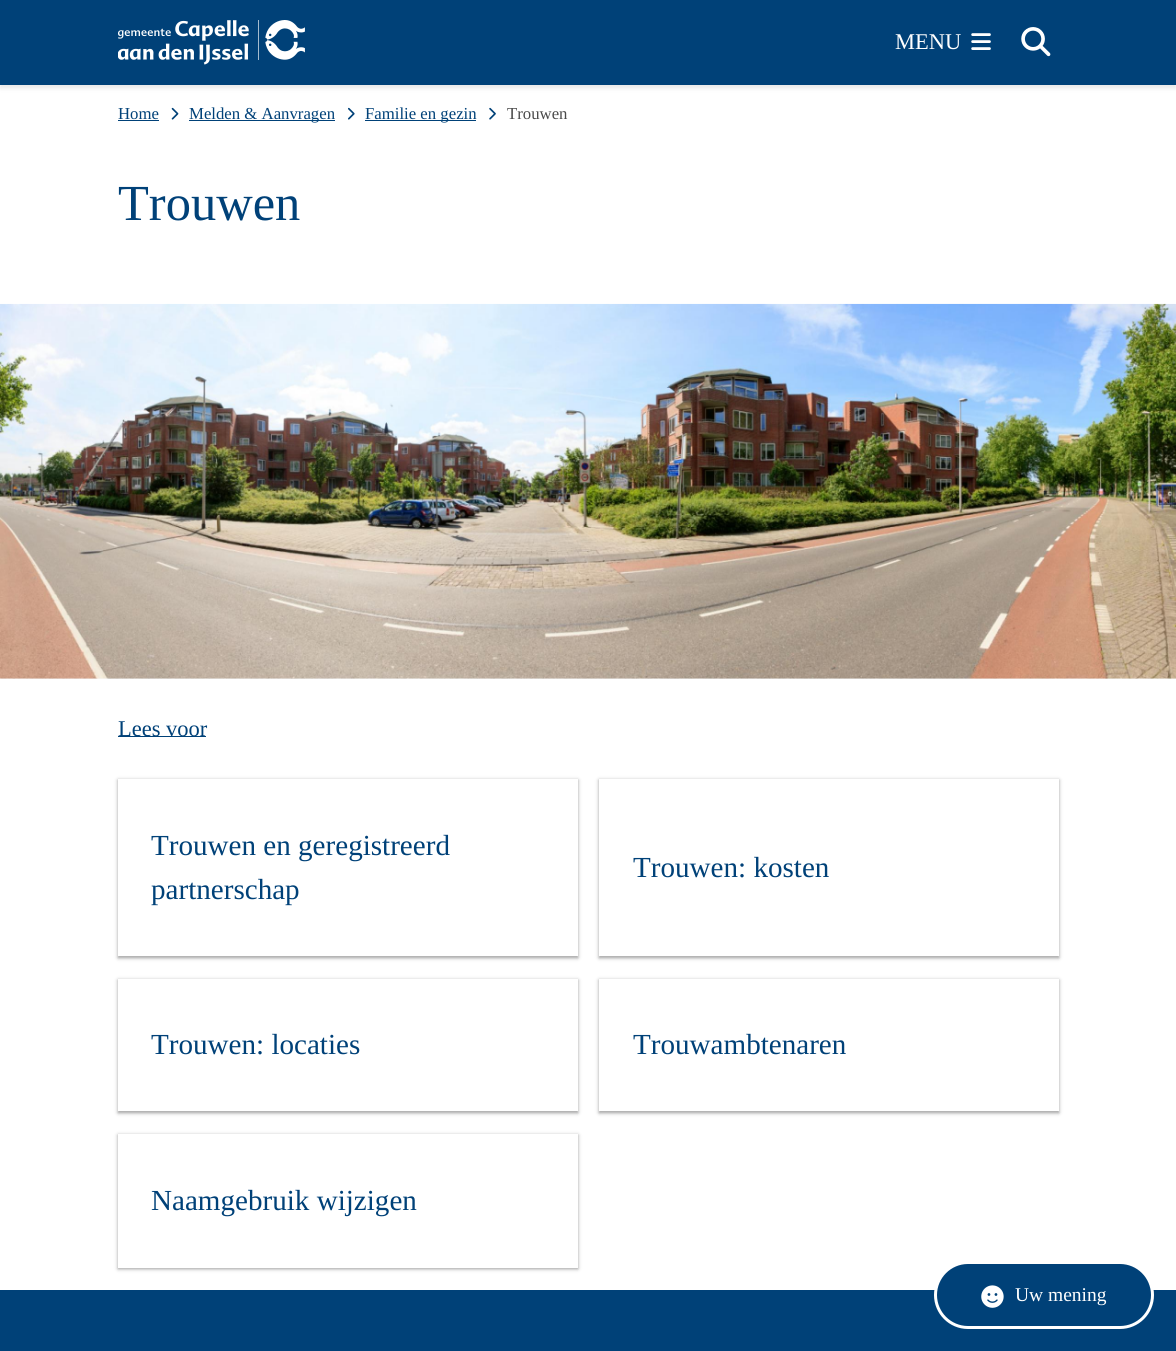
import math
import cairo



def rounded_rect(context, x, y, w, h, r):
    context.new_sub_path()
    for i, (u, v) in enumerate([(x + w - r, y + h - r), (x + r, y + h - r), (x + r, y + r), (x + w - r, y + r)]):
        context.arc(u, v, r, i * math.pi / 2, (i + 1) * math.pi / 2)
    context.close_path()


def draw_shadow(context, x, y, w, h, r, blur, alpha):
    context.push_group_with_content(cairo.Content.ALPHA)
    context.set_operator(cairo.Operator.SOURCE)
    for i in range(15, -16, -2):
        e = blur * i / 6
        if min(w, h) + 2 * e > 0:
            context.set_source_rgba(0, 0, 0, alpha * math.erfc((i - 1) / 8.5) / 2)
            rounded_rect(context, x - e, y - e, w + 2 * e, h + 2 * e, max(0, min(r + e + blur * .6, min(w, h) / 2 + e)))
            context.fill()
    context.mask(context.pop_group())


def draw_image(context, path, x, y, w, h):
    context.save()
    context.set_source_surface(cairo.ImageSurface.create_from_png(path), x, y)
    context.rectangle(x, y, w, h)
    context.fill()
    context.restore()


def draw(context):
    context.set_source_rgb(1, 1, 1)
    context.paint()
    context.set_source_rgb(0, 0, 0)
    draw_shadow(context, 0, 3, 1176, 85, 0, 2.5, 0.1)
    context.set_source_rgb(0, 65 / 255, 120 / 255)
    context.rectangle(0, 0, 1176, 85)
    context.fill()
    draw_image(context, "images/1.png", 118, 20, 187, 45)
    draw_image(context, "images/2.png", 971, 33, 20, 17)
    draw_image(context, "images/3.png", 1021, 27, 30, 30)
    context.rectangle(118, 120, 41, 1)
    context.fill()
    draw_image(context, "images/4.png", 171, 107, 8, 13)
    context.rectangle(189, 120, 146, 1)
    context.fill()
    draw_image(context, "images/5.png", 348, 107, 7, 13)
    context.rectangle(365, 120, 111, 1)
    context.fill()
    draw_image(context, "images/6.png", 489, 107, 7, 13)
    context.set_source_rgb(248 / 255, 250 / 255, 252 / 255)
    context.rectangle(0, 678, 1176, 1)
    context.fill()
    draw_image(context, "images/7.png", 0, 303, 1176, 376)
    context.set_source_rgb(0, 65 / 255, 120 / 255)
    context.rectangle(118, 736, 88, 1)
    context.fill()
    context.set_source_rgb(0, 0, 0)
    draw_shadow(context, 118, 780, 460, 178, 0, 1, 0.15)
    context.set_source_rgb(135 / 255, 135 / 255, 135 / 255)
    draw_shadow(context, 118, 780, 460, 178, 0, 2, 0.6)
    context.set_source_rgb(1, 1, 1)
    context.rectangle(118, 779, 460, 177)
    context.fill()
    context.set_source_rgb(0, 0, 0)
    draw_shadow(context, 599, 780, 460, 178, 0, 1, 0.15)
    context.set_source_rgb(135 / 255, 135 / 255, 135 / 255)
    draw_shadow(context, 599, 780, 460, 178, 0, 2, 0.6)
    context.set_source_rgb(1, 1, 1)
    context.rectangle(599, 779, 460, 177)
    context.fill()
    context.set_source_rgb(0, 0, 0)
    draw_shadow(context, 118, 980, 460, 133, 0, 1, 0.15)
    context.set_source_rgb(135 / 255, 135 / 255, 135 / 255)
    draw_shadow(context, 118, 980, 460, 133, 0, 2, 0.6)
    context.set_source_rgb(1, 1, 1)
    context.rectangle(118, 979, 460, 132)
    context.fill()
    context.set_source_rgb(0, 0, 0)
    draw_shadow(context, 599, 980, 460, 133, 0, 1, 0.15)
    context.set_source_rgb(135 / 255, 135 / 255, 135 / 255)
    draw_shadow(context, 599, 980, 460, 133, 0, 2, 0.6)
    context.set_source_rgb(1, 1, 1)
    context.rectangle(599, 979, 460, 132)
    context.fill()
    context.set_source_rgb(0, 0, 0)
    draw_shadow(context, 118, 1135, 460, 134, 0, 1, 0.15)
    context.set_source_rgb(135 / 255, 135 / 255, 135 / 255)
    draw_shadow(context, 118, 1135, 460, 134, 0, 2, 0.6)
    context.set_source_rgb(1, 1, 1)
    context.rectangle(118, 1134, 460, 134)
    context.fill()
    context.set_source_rgb(0, 65 / 255, 120 / 255)
    context.rectangle(0, 1290, 1176, 61)
    context.fill()
    rounded_rect(context, 935.5, 1262.5, 217, 65, 32.5)
    context.fill_preserve()
    context.set_source_rgb(1, 1, 1)
    context.set_line_width(3)
    context.stroke()
    draw_image(context, "images/8.png", 981, 1285, 23, 23)
    context.select_font_face("Liberation Serif")
    context.set_font_size(22.5)
    context.move_to(895, 49)
    context.show_text("MENU")
    context.set_font_size(16.75)
    context.set_source_rgb(0, 65 / 255, 120 / 255)
    context.move_to(118, 119)
    context.show_text("Home")
    context.move_to(189, 119)
    context.show_text("Melden & Aanvragen")
    context.move_to(365, 119)
    context.show_text("Familie en gezin")
    context.set_source_rgb(74 / 255, 74 / 255, 74 / 255)
    context.move_to(507, 119)
    context.show_text("Trouwen")
    context.set_font_size(50.5)
    context.set_source_rgb(0, 65 / 255, 120 / 255)
    context.move_to(118, 220)
    context.show_text("Trouwen")
    context.set_font_size(22.5)
    context.move_to(118, 736)
    context.show_text("Lees voor")
    context.set_font_size(29.1)
    context.move_to(151, 855)
    context.show_text("Trouwen en geregistreerd")
    context.move_to(151, 899)
    context.show_text("partnerschap")
    context.move_to(633, 877)
    context.show_text("Trouwen: kosten")
    context.move_to(151, 1054)
    context.show_text("Trouwen: locaties")
    context.move_to(633, 1054)
    context.show_text("Trouwambtenaren")
    context.move_to(151, 1210)
    context.show_text("Naamgebruik wijzigen")
    context.set_font_size(19.5)
    context.set_source_rgb(1, 1, 1)
    context.move_to(1015, 1301)
    context.show_text("Uw mening")


surface = cairo.ImageSurface(cairo.Format.RGB24, 1176, 1351)
context = cairo.Context(surface)
options = cairo.FontOptions()
options.set_hint_metrics(cairo.HintMetrics.OFF)
options.set_hint_style(cairo.HintStyle.NONE)
context.set_font_options(options)
context.set_miter_limit(4)
draw(context)
surface.write_to_png("out.png")
